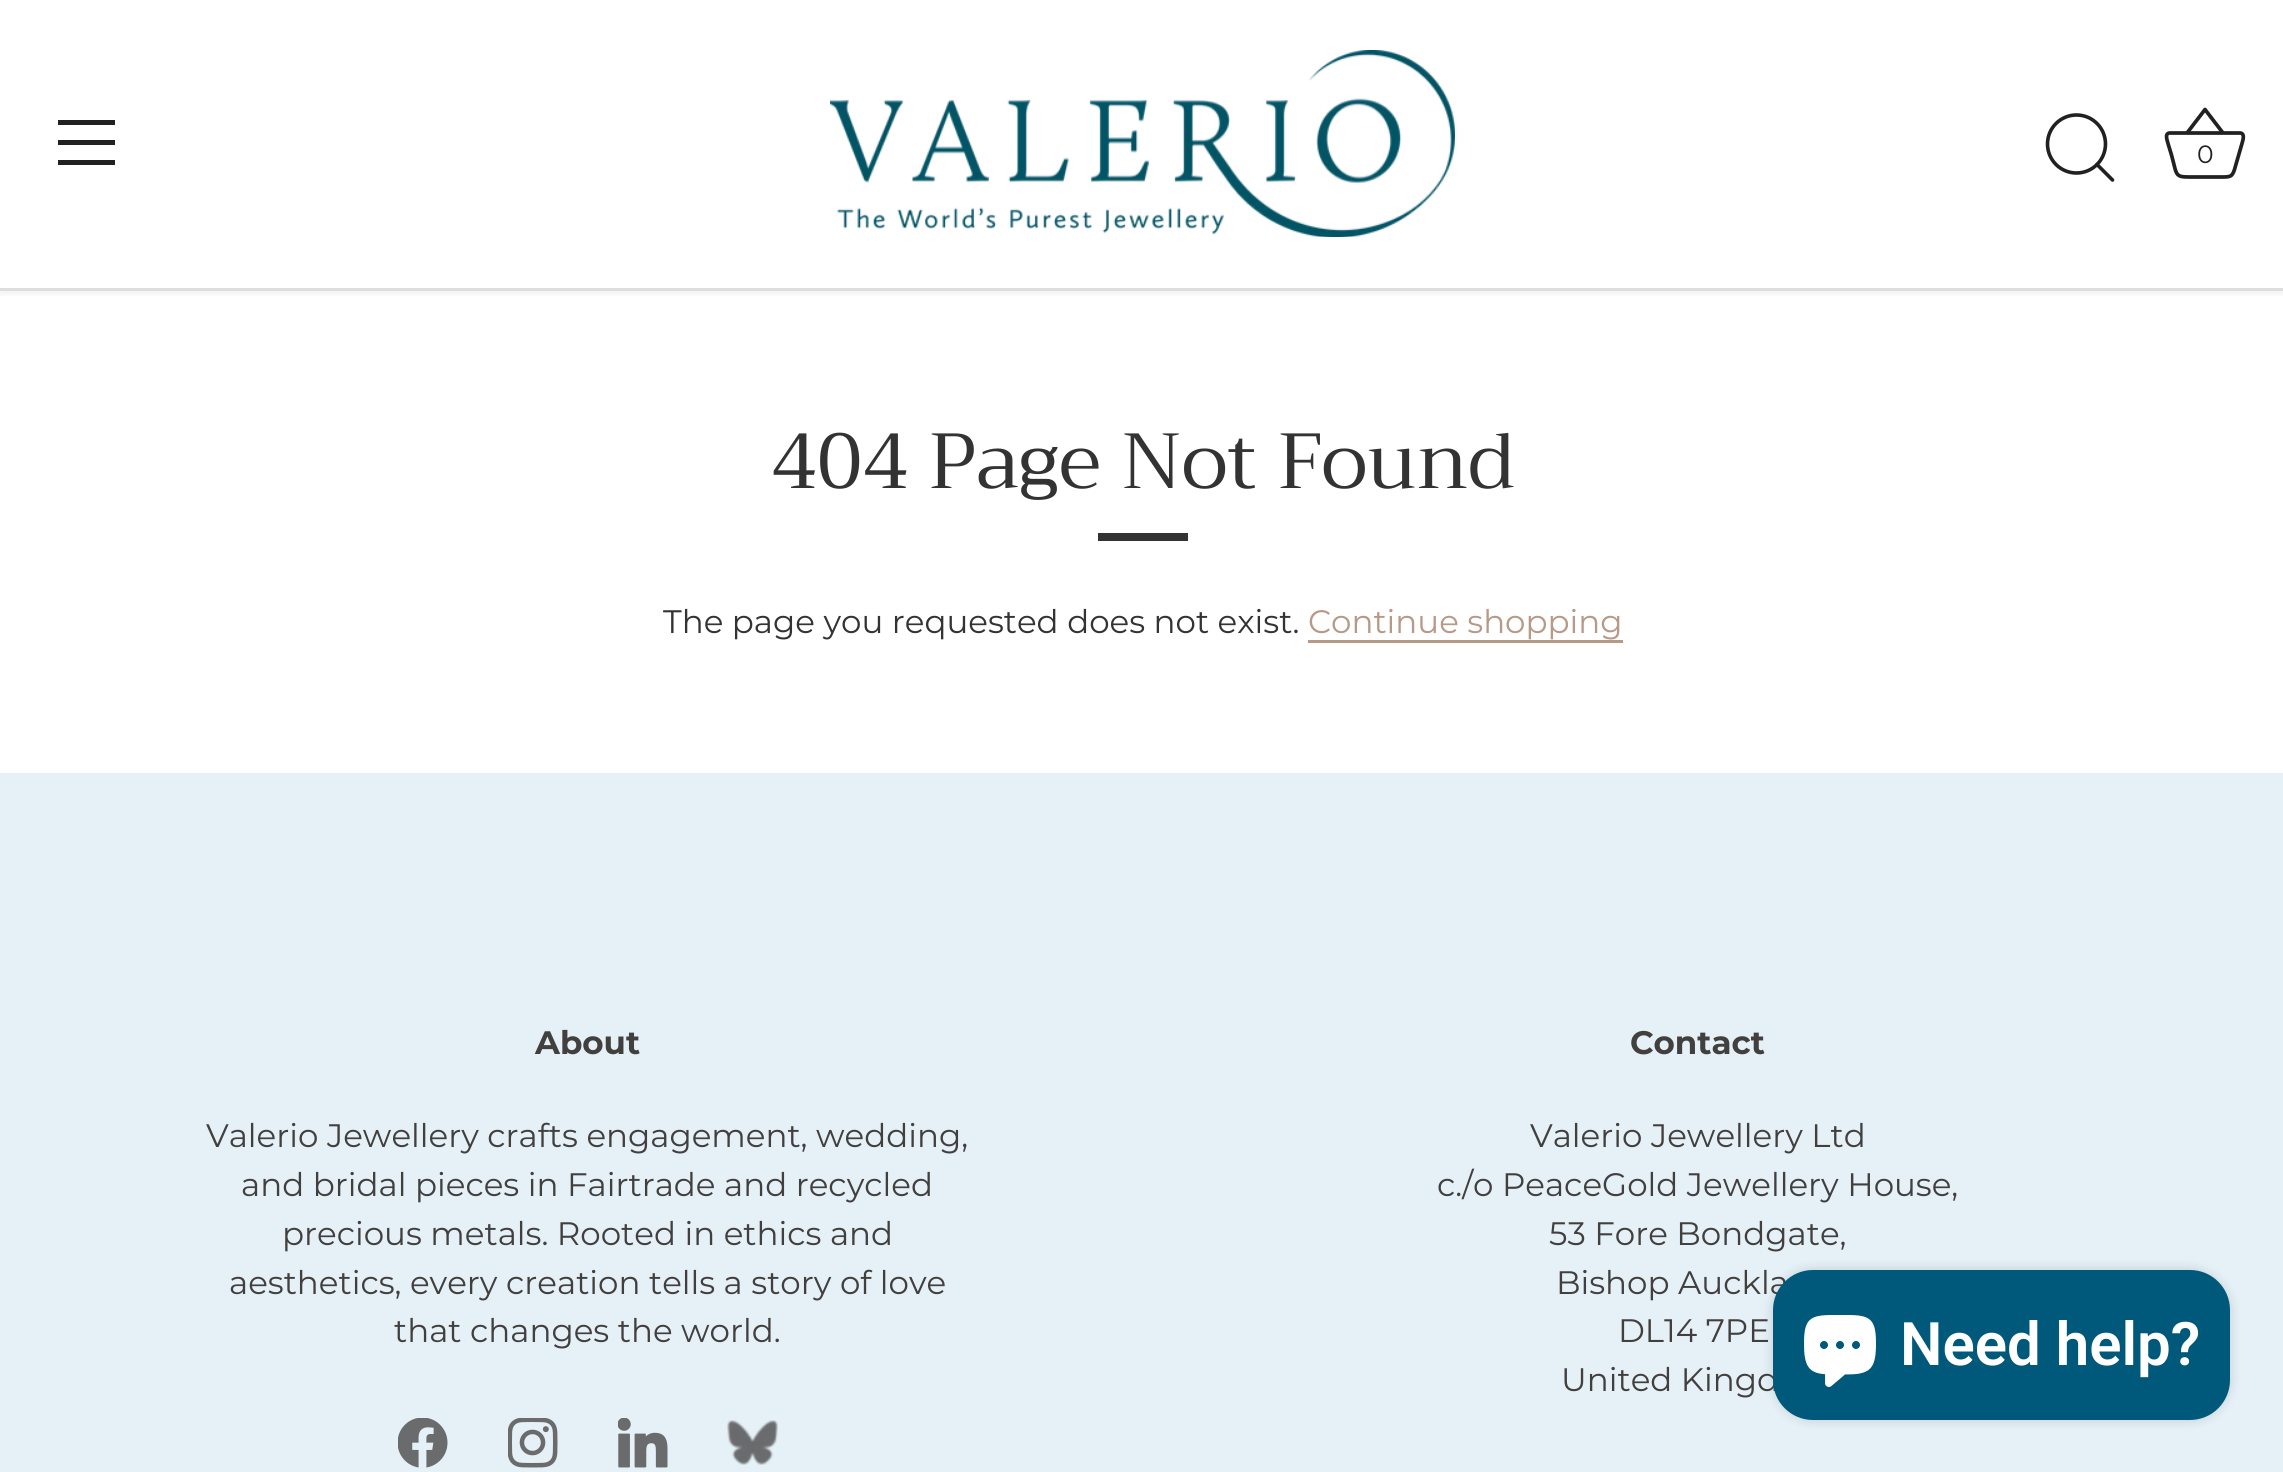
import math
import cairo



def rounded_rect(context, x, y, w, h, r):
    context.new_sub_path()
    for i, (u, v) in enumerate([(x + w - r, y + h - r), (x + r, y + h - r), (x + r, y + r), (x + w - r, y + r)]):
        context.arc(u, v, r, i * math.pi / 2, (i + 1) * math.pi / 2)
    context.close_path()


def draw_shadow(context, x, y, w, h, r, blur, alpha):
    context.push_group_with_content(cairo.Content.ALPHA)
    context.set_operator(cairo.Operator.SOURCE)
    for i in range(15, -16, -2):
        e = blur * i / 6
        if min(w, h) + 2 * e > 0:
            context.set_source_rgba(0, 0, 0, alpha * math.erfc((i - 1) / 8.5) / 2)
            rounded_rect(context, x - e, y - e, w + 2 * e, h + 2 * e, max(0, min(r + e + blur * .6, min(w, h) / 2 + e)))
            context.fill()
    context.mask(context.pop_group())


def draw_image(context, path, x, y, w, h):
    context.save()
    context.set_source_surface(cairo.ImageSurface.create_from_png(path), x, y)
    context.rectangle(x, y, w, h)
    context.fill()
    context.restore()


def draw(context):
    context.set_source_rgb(1, 1, 1)
    context.paint()
    context.save()
    context.rectangle(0, 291, 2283, 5)
    context.clip()
    context.set_source_rgb(0, 0, 0)
    draw_shadow(context, 0, 5, 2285, 290, 0, 2.5, 0.05)
    context.restore()
    context.set_source_rgb(221 / 255, 221 / 255, 221 / 255)
    context.rectangle(0, 288, 2283, 3)
    context.fill()
    context.set_source_rgb(33 / 255, 33 / 255, 33 / 255)
    context.rectangle(58, 120, 57, 5)
    context.fill()
    context.rectangle(58, 140, 57, 5)
    context.fill()
    context.rectangle(58, 160, 57, 5)
    context.fill()
    draw_image(context, "images/1.png", 830, 50, 625, 187)
    context.arc(2076.5, 144, 29, 0, 2 * math.pi)
    context.set_line_width(3.6)
    context.stroke()
    context.new_path()
    context.move_to(2112.5, 180)
    context.line_to(2097, 164.5)
    context.set_line_cap(cairo.LineCap.ROUND)
    context.set_line_join(cairo.LineJoin.ROUND)
    context.stroke()
    context.new_path()
    context.move_to(2170, 133)
    context.curve_to(2164, 133, 2167.5, 141, 2168, 143.5)
    context.line_to(2171.5, 155)
    context.curve_to(2178, 178.5, 2173.5, 177, 2198, 177)
    context.line_to(2219.5, 177)
    context.curve_to(2231, 177, 2232.5, 177.5, 2235.5, 166)
    context.line_to(2242, 143.5)
    context.curve_to(2242.5, 141, 2245.5, 134, 2240.5, 133)
    context.line_to(2170, 133)
    context.set_line_width(3.7)
    context.set_line_cap(cairo.LineCap.BUTT)
    context.stroke()
    context.new_path()
    context.move_to(2187, 133)
    context.line_to(2205, 109.5)
    context.line_to(2223, 133)
    context.stroke()
    context.set_source_rgb(51 / 255, 51 / 255, 51 / 255)
    context.rectangle(1098, 533, 90, 8)
    context.fill()
    context.set_source_rgb(183 / 255, 153 / 255, 135 / 255)
    context.rectangle(1308, 640, 315, 3)
    context.fill()
    context.set_source_rgb(229 / 255, 240 / 255, 247 / 255)
    context.rectangle(0, 773, 2283, 699)
    context.fill()
    draw_image(context, "images/2.png", 398, 1418, 50, 50)
    draw_image(context, "images/3.png", 508, 1418, 50, 50)
    draw_image(context, "images/4.png", 618, 1418, 50, 50)
    draw_image(context, "images/5.png", 727, 1420, 51, 45)
    context.set_source_rgb(0, 0, 0)
    draw_shadow(context, 1773, 1270, 457, 150, 40, 6, 0.15)
    context.select_font_face("Montserrat")
    context.set_font_size(25)
    context.set_source_rgb(33 / 255, 33 / 255, 33 / 255)
    context.move_to(2197, 163)
    context.show_text("0")
    context.select_font_face("Trirong")
    context.set_font_size(78)
    context.set_source_rgb(51 / 255, 51 / 255, 51 / 255)
    context.move_to(771, 488)
    context.show_text("404 Page Not Found")
    context.select_font_face("Montserrat")
    context.set_font_size(32.5)
    context.move_to(663, 633)
    context.show_text("The page you requested does not exist.")
    context.set_source_rgb(183 / 255, 153 / 255, 135 / 255)
    context.move_to(1308, 633)
    context.show_text("Continue shopping")
    context.select_font_face("Montserrat", cairo.FontSlant.NORMAL, cairo.FontWeight.BOLD)
    context.set_source_rgb(66 / 255, 63 / 255, 63 / 255)
    context.move_to(535, 1054)
    context.show_text("About")
    context.select_font_face("Montserrat")
    context.move_to(206, 1147)
    context.show_text("Valerio Jewellery crafts engagement, wedding,")
    context.move_to(241, 1196)
    context.show_text("and bridal pieces in Fairtrade and recycled")
    context.move_to(282, 1245)
    context.show_text("precious metals. Rooted in ethics and")
    context.move_to(229, 1294)
    context.show_text("aesthetics, every creation tells a story of love")
    context.move_to(394, 1342)
    context.show_text("that changes the world.")
    context.select_font_face("Montserrat", cairo.FontSlant.NORMAL, cairo.FontWeight.BOLD)
    context.move_to(1630, 1054)
    context.show_text("Contact")
    context.select_font_face("Montserrat")
    context.move_to(1530, 1147)
    context.show_text("Valerio Jewellery Ltd")
    context.move_to(1437, 1196)
    context.show_text("c./o PeaceGold Jewellery House,")
    context.move_to(1549, 1245)
    context.show_text("53 Fore Bondgate,")
    context.move_to(1556, 1294)
    context.show_text("Bishop Auckla")
    context.move_to(1618, 1342)
    context.show_text("DL14 7PE")
    context.move_to(1561, 1391)
    context.show_text("United Kingd")
    context.set_source_rgb(0, 88 / 255, 122 / 255)
    rounded_rect(context, 1773, 1270, 457, 150, 40)
    context.fill()
    draw_image(context, "images/6.png", 1804, 1315, 72, 72)
    context.select_font_face("Roboto SemiBold")
    context.set_font_size(60)
    context.set_source_rgb(1, 1, 1)
    context.move_to(1900, 1365)
    context.show_text("Need help?")


surface = cairo.ImageSurface(cairo.Format.RGB24, 2283, 1472)
context = cairo.Context(surface)
options = cairo.FontOptions()
options.set_hint_metrics(cairo.HintMetrics.OFF)
options.set_hint_style(cairo.HintStyle.NONE)
context.set_font_options(options)
context.set_miter_limit(4)
draw(context)
surface.write_to_png("out.png")
